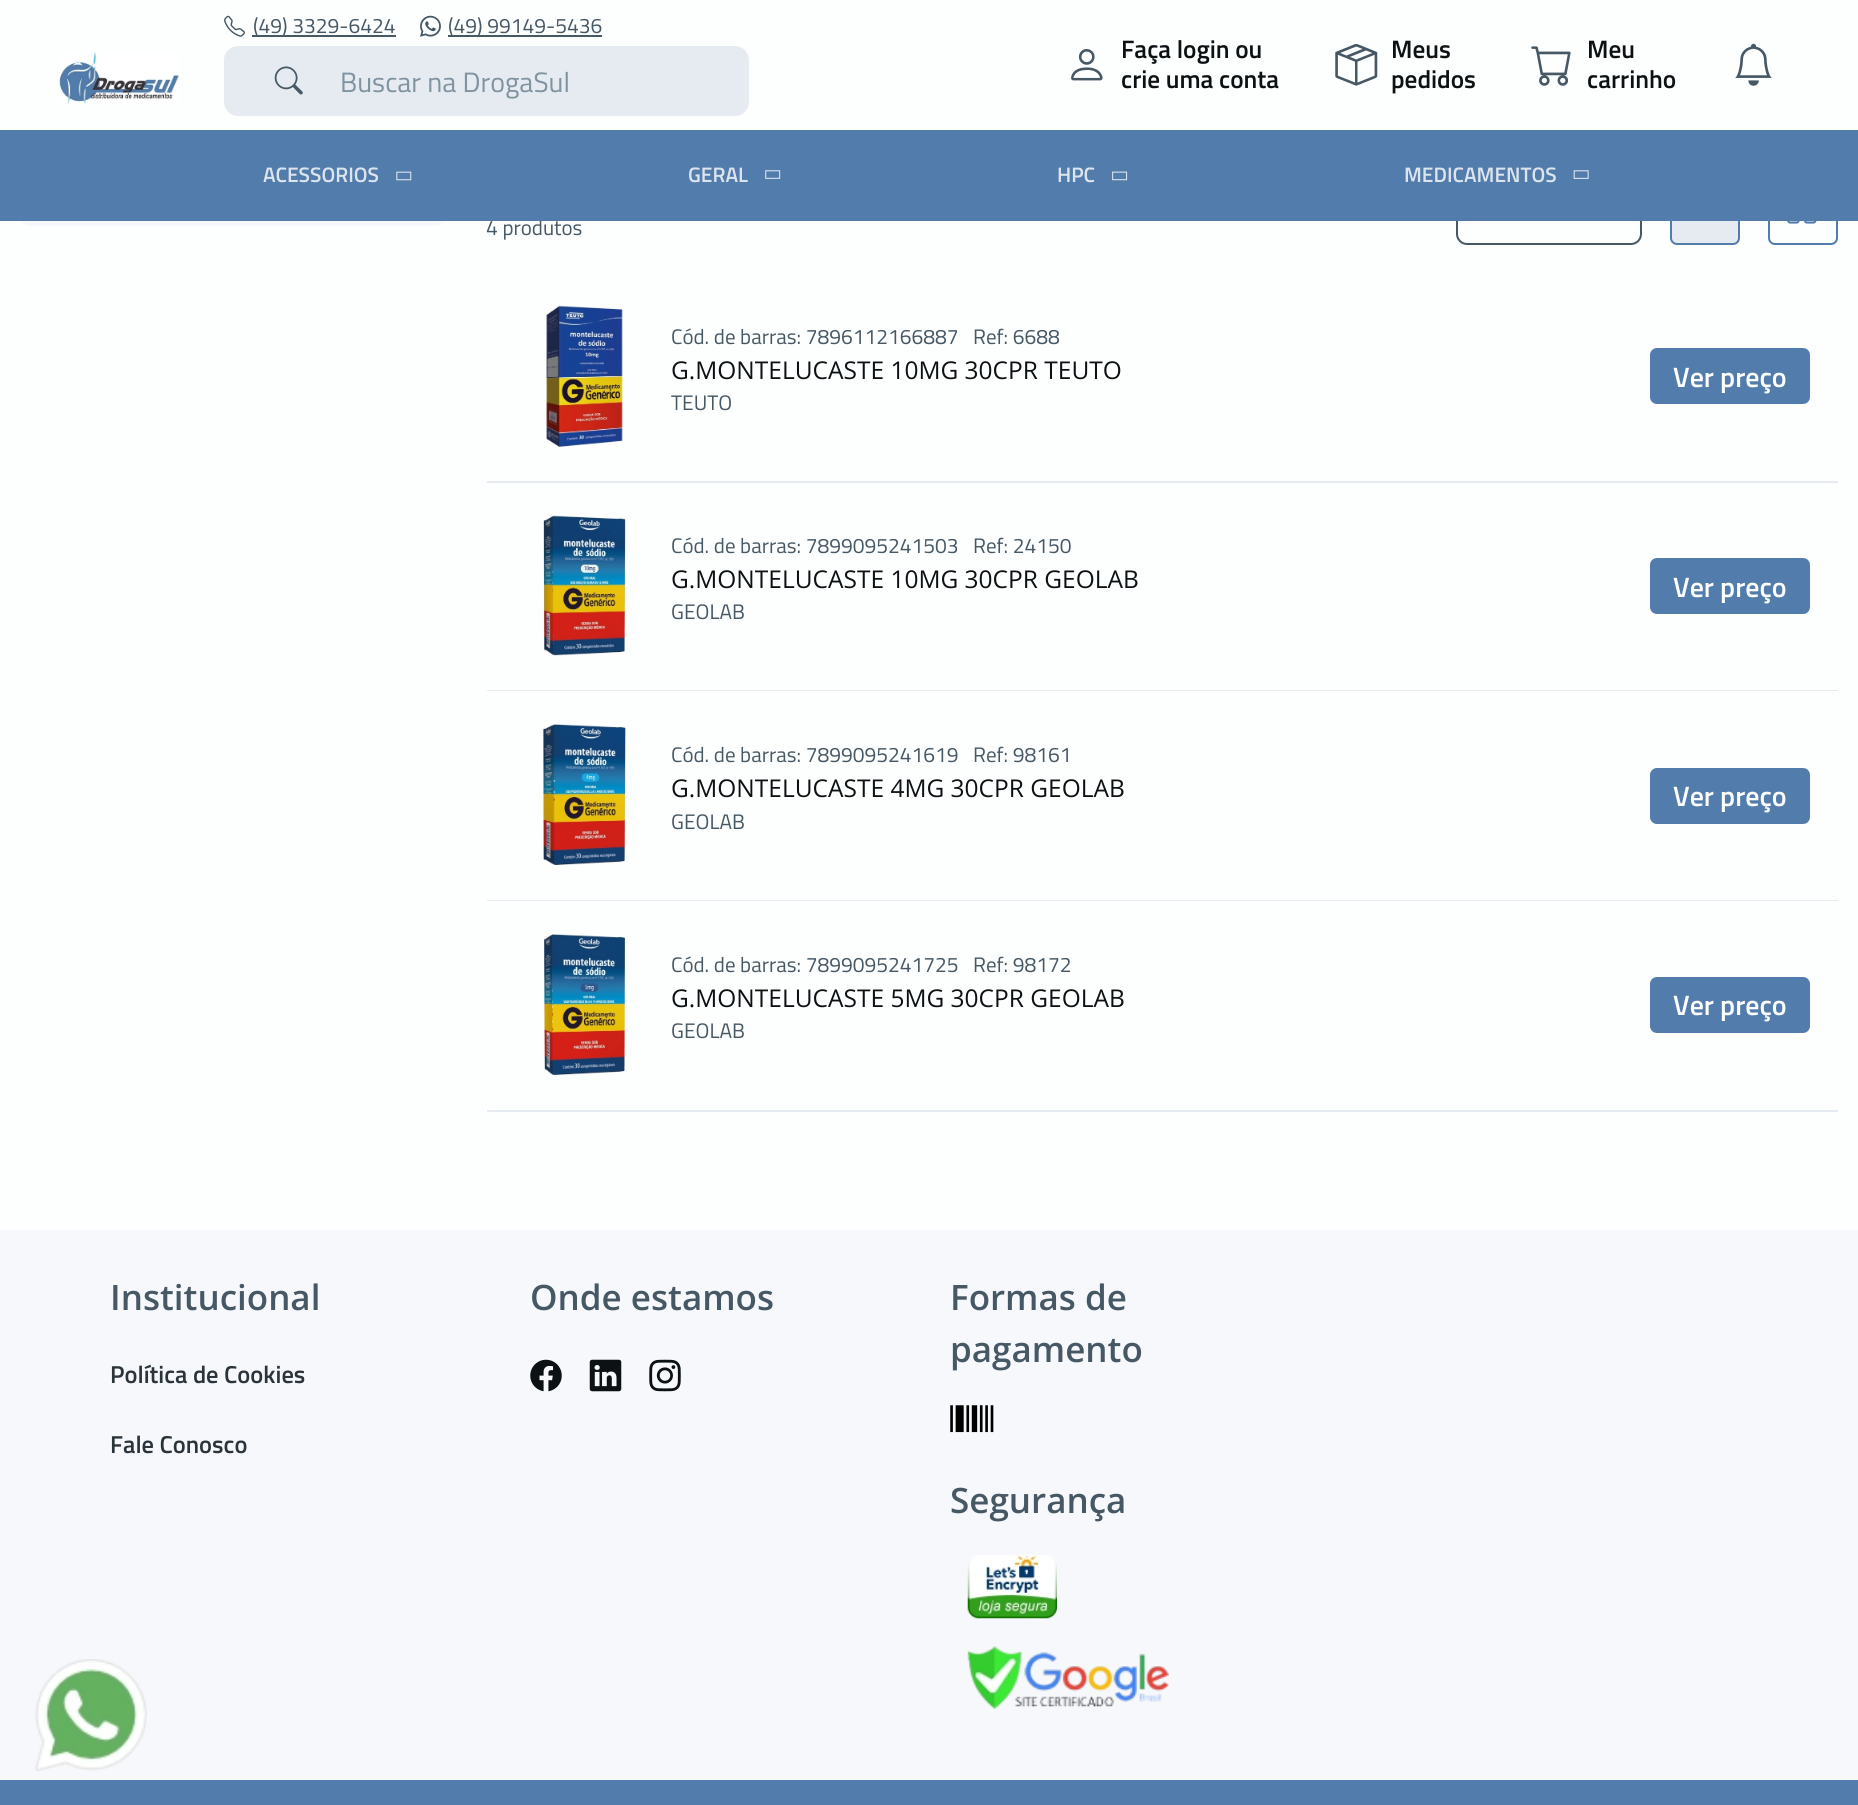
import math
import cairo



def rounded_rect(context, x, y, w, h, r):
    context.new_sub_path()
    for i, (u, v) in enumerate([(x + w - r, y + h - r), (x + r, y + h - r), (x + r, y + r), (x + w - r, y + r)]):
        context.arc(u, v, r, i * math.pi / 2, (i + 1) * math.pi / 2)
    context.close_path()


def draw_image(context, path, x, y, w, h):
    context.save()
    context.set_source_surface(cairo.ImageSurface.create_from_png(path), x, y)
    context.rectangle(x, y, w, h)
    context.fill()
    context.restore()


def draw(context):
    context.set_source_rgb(253 / 255, 254 / 255, 254 / 255)
    context.paint()
    draw_image(context, "images/1.png", 59, 52, 120, 52)
    draw_image(context, "images/2.png", 224, 15, 21, 22)
    context.set_source_rgb(71 / 255, 88 / 255, 101 / 255)
    context.rectangle(252, 35, 144, 2)
    context.fill()
    draw_image(context, "images/3.png", 420, 15, 21, 22)
    context.rectangle(448, 35, 154, 2)
    context.fill()
    context.set_source_rgb(230 / 255, 235 / 255, 241 / 255)
    rounded_rect(context, 224, 46, 525, 70, 14)
    context.fill()
    draw_image(context, "images/4.png", 274, 66, 29, 29)
    draw_image(context, "images/5.png", 1071, 49, 32, 32)
    draw_image(context, "images/6.png", 1335, 43, 43, 43)
    draw_image(context, "images/7.png", 1531, 46, 40, 40)
    draw_image(context, "images/8.png", 1735, 43, 37, 43)
    context.set_source_rgb(246 / 255, 248 / 255, 252 / 255)
    rounded_rect(context, 21, 140, 424, 86, 9)
    context.fill()
    rounded_rect(context, 1457, 176, 184, 68, 10)
    context.set_source_rgb(71 / 255, 88 / 255, 101 / 255)
    context.stroke()
    context.set_source_rgb(230 / 255, 235 / 255, 241 / 255)
    rounded_rect(context, 1671, 176, 68, 68, 6)
    context.fill_preserve()
    context.set_source_rgb(82 / 255, 124 / 255, 172 / 255)
    context.stroke()
    rounded_rect(context, 1769, 176, 68, 68, 6)
    context.stroke()
    draw_image(context, "images/13.png", 1787, 221, 30, 3)
    context.set_source_rgb(230 / 255, 235 / 255, 241 / 255)
    context.rectangle(487, 481, 1351, 2)
    context.fill()
    draw_image(context, "images/14.png", 545, 305, 79, 142)
    context.set_source_rgb(82 / 255, 124 / 255, 172 / 255)
    rounded_rect(context, 1651, 349, 158, 54, 6)
    context.fill_preserve()
    context.stroke()
    context.set_source_rgb(230 / 255, 235 / 255, 241 / 255)
    context.rectangle(487, 690, 1351, 1)
    context.fill()
    draw_image(context, "images/15.png", 543, 515, 83, 141)
    context.set_source_rgb(82 / 255, 124 / 255, 172 / 255)
    rounded_rect(context, 1651, 559, 158, 54, 6)
    context.fill_preserve()
    context.stroke()
    context.set_source_rgb(230 / 255, 235 / 255, 241 / 255)
    context.rectangle(487, 900, 1351, 1)
    context.fill()
    draw_image(context, "images/16.png", 542, 724, 84, 141)
    context.set_source_rgb(82 / 255, 124 / 255, 172 / 255)
    rounded_rect(context, 1651, 769, 158, 54, 6)
    context.fill_preserve()
    context.stroke()
    context.set_source_rgb(230 / 255, 235 / 255, 241 / 255)
    context.rectangle(487, 1110, 1351, 2)
    context.fill()
    draw_image(context, "images/17.png", 543, 934, 83, 141)
    context.set_source_rgb(82 / 255, 124 / 255, 172 / 255)
    rounded_rect(context, 1651, 978, 158, 54, 6)
    context.fill_preserve()
    context.stroke()
    context.set_source_rgb(246 / 255, 248 / 255, 252 / 255)
    context.rectangle(0, 1230, 1858, 550)
    context.fill()
    draw_image(context, "images/18.png", 530, 1359, 32, 33)
    draw_image(context, "images/19.png", 589, 1359, 33, 33)
    draw_image(context, "images/20.png", 649, 1359, 32, 33)
    draw_image(context, "images/21.png", 950, 1405, 44, 28)
    draw_image(context, "images/22.png", 967, 1555, 90, 64)
    draw_image(context, "images/23.png", 967, 1646, 202, 64)
    context.set_source_rgb(82 / 255, 124 / 255, 172 / 255)
    context.rectangle(0, 1780, 1858, 25)
    context.fill()
    draw_image(context, "images/24.png", 35, 1659, 112, 112)
    context.select_font_face("Titillium Web")
    context.set_font_size(21)
    context.set_source_rgb(71 / 255, 88 / 255, 101 / 255)
    context.move_to(253, 33)
    context.show_text("(49) 3329-6424")
    context.move_to(448, 33)
    context.show_text("(49) 99149-5436")
    context.set_font_size(28)
    context.set_source_rgb(128 / 255, 147 / 255, 160 / 255)
    context.move_to(340, 92)
    context.show_text("Buscar na DrogaSul")
    context.select_font_face("Titillium Web SemiBold")
    context.set_font_size(25.25)
    context.set_source_rgb(12 / 255, 17 / 255, 20 / 255)
    context.move_to(1121, 58)
    context.show_text("Faça login ou")
    context.move_to(1121, 88)
    context.show_text("crie uma conta")
    context.move_to(1391, 58)
    context.show_text("Meus")
    context.move_to(1391, 88)
    context.show_text("pedidos")
    context.move_to(1587, 58)
    context.show_text("Meu")
    context.move_to(1587, 88)
    context.show_text("carrinho")
    context.select_font_face("Titillium Web")
    context.set_font_size(21)
    context.set_source_rgb(71 / 255, 88 / 255, 101 / 255)
    context.move_to(486, 235)
    context.show_text("4 produtos")
    context.set_source_rgb(82 / 255, 124 / 255, 172 / 255)
    context.rectangle(0, 130, 1858, 91)
    context.fill()
    draw_image(context, "images/12.png", 1573, 170, 16, 9)
    context.select_font_face("Titillium Web SemiBold")
    context.set_source_rgb(220 / 255, 229 / 255, 238 / 255)
    context.move_to(1404, 182)
    context.show_text("MEDICAMENTOS")
    draw_image(context, "images/11.png", 1112, 171, 16, 10)
    context.move_to(1057, 182)
    context.show_text("HPC")
    draw_image(context, "images/10.png", 765, 170, 16, 9)
    context.move_to(688, 182)
    context.show_text("GERAL")
    draw_image(context, "images/9.png", 396, 171, 16, 10)
    context.move_to(263, 182)
    context.show_text("ACESSORIOS")
    context.select_font_face("Titillium Web")
    context.set_source_rgb(71 / 255, 88 / 255, 101 / 255)
    context.move_to(671, 344)
    context.show_text("Cód. de barras: 7896112166887")
    context.move_to(973, 344)
    context.show_text("Ref: 6688")
    context.select_font_face("Open Sans")
    context.set_font_size(24.5)
    context.set_source_rgb(12 / 255, 17 / 255, 20 / 255)
    context.move_to(671, 379)
    context.show_text("G.MONTELUCASTE 10MG 30CPR TEUTO")
    context.select_font_face("Titillium Web")
    context.set_font_size(21)
    context.set_source_rgb(71 / 255, 88 / 255, 101 / 255)
    context.move_to(671, 410)
    context.show_text("TEUTO")
    context.select_font_face("Titillium Web SemiBold")
    context.set_font_size(28)
    context.set_source_rgb(253 / 255, 254 / 255, 254 / 255)
    context.move_to(1673, 387)
    context.show_text("Ver preço")
    context.select_font_face("Titillium Web")
    context.set_font_size(21)
    context.set_source_rgb(71 / 255, 88 / 255, 101 / 255)
    context.move_to(671, 553)
    context.show_text("Cód. de barras: 7899095241503")
    context.move_to(973, 553)
    context.show_text("Ref: 24150")
    context.select_font_face("Open Sans")
    context.set_font_size(24.5)
    context.set_source_rgb(12 / 255, 17 / 255, 20 / 255)
    context.move_to(671, 588)
    context.show_text("G.MONTELUCASTE 10MG 30CPR GEOLAB")
    context.select_font_face("Titillium Web")
    context.set_font_size(21)
    context.set_source_rgb(71 / 255, 88 / 255, 101 / 255)
    context.move_to(671, 619)
    context.show_text("GEOLAB")
    context.select_font_face("Titillium Web SemiBold")
    context.set_font_size(28)
    context.set_source_rgb(253 / 255, 254 / 255, 254 / 255)
    context.move_to(1673, 597)
    context.show_text("Ver preço")
    context.select_font_face("Titillium Web")
    context.set_font_size(21)
    context.set_source_rgb(71 / 255, 88 / 255, 101 / 255)
    context.move_to(671, 762)
    context.show_text("Cód. de barras: 7899095241619")
    context.move_to(973, 762)
    context.show_text("Ref: 98161")
    context.select_font_face("Open Sans")
    context.set_font_size(24.5)
    context.set_source_rgb(12 / 255, 17 / 255, 20 / 255)
    context.move_to(671, 797)
    context.show_text("G.MONTELUCASTE 4MG 30CPR GEOLAB")
    context.select_font_face("Titillium Web")
    context.set_font_size(21)
    context.set_source_rgb(71 / 255, 88 / 255, 101 / 255)
    context.move_to(671, 829)
    context.show_text("GEOLAB")
    context.select_font_face("Titillium Web SemiBold")
    context.set_font_size(28)
    context.set_source_rgb(253 / 255, 254 / 255, 254 / 255)
    context.move_to(1673, 806)
    context.show_text("Ver preço")
    context.select_font_face("Titillium Web")
    context.set_font_size(21)
    context.set_source_rgb(71 / 255, 88 / 255, 101 / 255)
    context.move_to(671, 972)
    context.show_text("Cód. de barras: 7899095241725")
    context.move_to(973, 972)
    context.show_text("Ref: 98172")
    context.select_font_face("Open Sans")
    context.set_font_size(24.5)
    context.set_source_rgb(12 / 255, 17 / 255, 20 / 255)
    context.move_to(671, 1007)
    context.show_text("G.MONTELUCASTE 5MG 30CPR GEOLAB")
    context.select_font_face("Titillium Web")
    context.set_font_size(21)
    context.set_source_rgb(71 / 255, 88 / 255, 101 / 255)
    context.move_to(671, 1038)
    context.show_text("GEOLAB")
    context.select_font_face("Titillium Web SemiBold")
    context.set_font_size(28)
    context.set_source_rgb(253 / 255, 254 / 255, 254 / 255)
    context.move_to(1673, 1015)
    context.show_text("Ver preço")
    context.select_font_face("Open Sans SemiBold")
    context.set_font_size(35)
    context.set_source_rgb(71 / 255, 88 / 255, 101 / 255)
    context.move_to(110, 1310)
    context.show_text("Institucional")
    context.select_font_face("Titillium Web SemiBold")
    context.set_font_size(24.5)
    context.set_source_rgb(43 / 255, 52 / 255, 59 / 255)
    context.move_to(110, 1383)
    context.show_text("Política de Cookies")
    context.move_to(110, 1453)
    context.show_text("Fale Conosco")
    context.select_font_face("Open Sans SemiBold")
    context.set_font_size(35)
    context.set_source_rgb(71 / 255, 88 / 255, 101 / 255)
    context.move_to(530, 1310)
    context.show_text("Onde estamos")
    context.move_to(950, 1310)
    context.show_text("Formas de")
    context.move_to(950, 1362)
    context.show_text("pagamento")
    context.move_to(950, 1513)
    context.show_text("Segurança")


surface = cairo.ImageSurface(cairo.Format.RGB24, 1858, 1805)
context = cairo.Context(surface)
options = cairo.FontOptions()
options.set_hint_metrics(cairo.HintMetrics.OFF)
options.set_hint_style(cairo.HintStyle.NONE)
context.set_font_options(options)
context.set_miter_limit(4)
draw(context)
surface.write_to_png("out.png")
